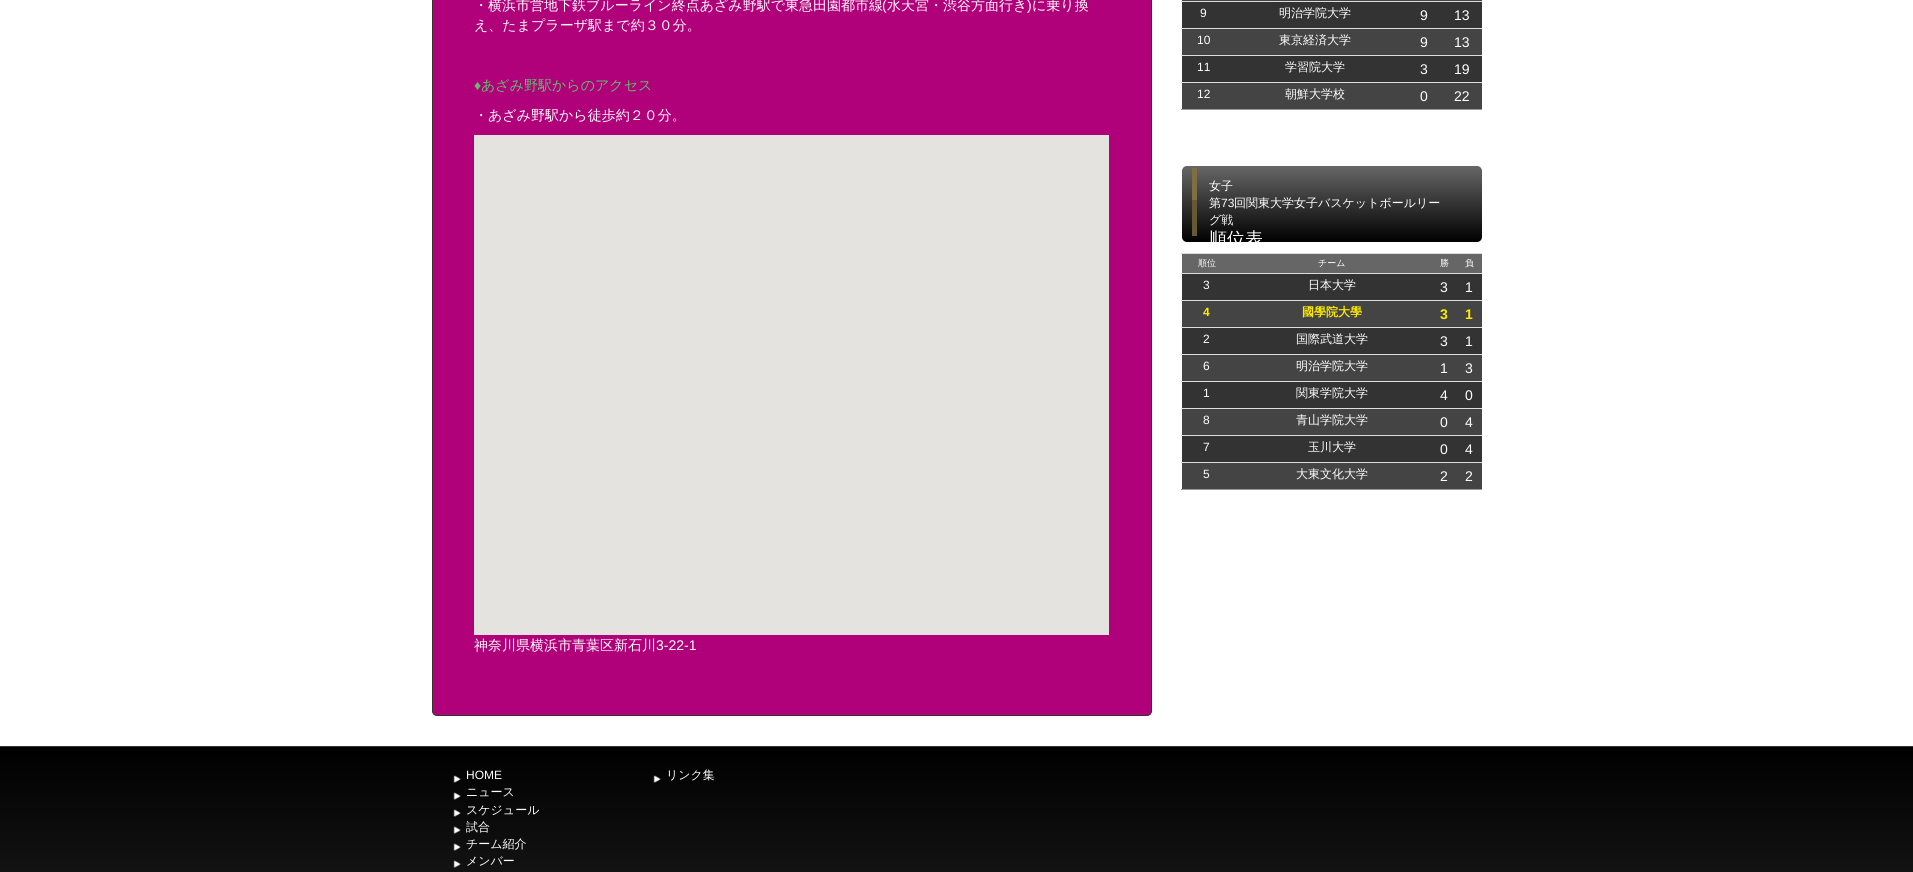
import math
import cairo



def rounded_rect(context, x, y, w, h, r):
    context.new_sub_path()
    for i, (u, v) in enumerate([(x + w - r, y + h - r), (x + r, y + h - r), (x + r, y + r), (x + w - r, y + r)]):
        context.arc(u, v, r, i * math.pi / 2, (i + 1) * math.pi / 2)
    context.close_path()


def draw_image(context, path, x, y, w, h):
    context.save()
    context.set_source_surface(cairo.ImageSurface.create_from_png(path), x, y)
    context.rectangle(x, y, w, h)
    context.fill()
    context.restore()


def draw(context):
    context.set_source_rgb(1, 1, 1)
    context.paint()
    context.set_source_rgb(176 / 255, 0, 122 / 255)
    rounded_rect(context, 432.5, -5.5, 719, 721, 4.5)
    context.fill_preserve()
    context.set_source_rgb(51 / 255, 51 / 255, 51 / 255)
    context.set_line_width(1)
    context.stroke()
    context.set_source_rgb(229 / 255, 227 / 255, 223 / 255)
    context.rectangle(474, 135, 635, 500)
    context.fill()
    context.set_source_rgb(68 / 255, 68 / 255, 68 / 255)
    context.rectangle(1182, 0, 300, 1)
    context.fill()
    context.set_source_rgb(51 / 255, 51 / 255, 51 / 255)
    context.rectangle(1182, 2, 300, 26)
    context.fill()
    context.set_source_rgb(221 / 255, 221 / 255, 221 / 255)
    context.rectangle(1181, 1, 301, 1)
    context.fill()
    context.set_source_rgb(68 / 255, 68 / 255, 68 / 255)
    context.rectangle(1182, 29, 300, 26)
    context.fill()
    context.set_source_rgb(221 / 255, 221 / 255, 221 / 255)
    context.rectangle(1181, 28, 301, 1)
    context.fill()
    context.set_source_rgb(51 / 255, 51 / 255, 51 / 255)
    context.rectangle(1182, 56, 300, 26)
    context.fill()
    context.set_source_rgb(221 / 255, 221 / 255, 221 / 255)
    context.rectangle(1181, 55, 301, 1)
    context.fill()
    context.set_source_rgb(68 / 255, 68 / 255, 68 / 255)
    context.rectangle(1182, 83, 300, 26)
    context.fill()
    context.set_source_rgb(153 / 255, 153 / 255, 153 / 255)
    context.rectangle(1181, 109, 301, 1)
    context.fill()
    context.set_source_rgb(221 / 255, 221 / 255, 221 / 255)
    context.rectangle(1181, 82, 301, 1)
    context.fill()
    gradient = cairo.LinearGradient(1332, 166, 1332, 242)
    gradient.add_color_stop_rgba(0, 102 / 255, 102 / 255, 102 / 255, 1)
    gradient.add_color_stop_rgba(1, 0, 0, 0, 1)
    context.set_source(gradient)
    rounded_rect(context, 1182, 166, 300, 76, 5)
    context.fill()
    context.set_source_rgb(125 / 255, 111 / 255, 65 / 255)
    context.rectangle(1192, 168, 5, 32)
    context.fill()
    context.set_source_rgb(100 / 255, 89 / 255, 52 / 255)
    context.rectangle(1192, 200, 5, 36)
    context.fill()
    context.set_source_rgb(102 / 255, 102 / 255, 102 / 255)
    context.rectangle(1182, 254, 300, 19)
    context.fill()
    context.set_source_rgb(221 / 255, 221 / 255, 221 / 255)
    context.rectangle(1181, 253, 301, 1)
    context.fill()
    context.set_source_rgb(51 / 255, 51 / 255, 51 / 255)
    context.rectangle(1182, 274, 300, 26)
    context.fill()
    context.set_source_rgb(221 / 255, 221 / 255, 221 / 255)
    context.rectangle(1181, 273, 301, 1)
    context.fill()
    context.set_source_rgb(68 / 255, 68 / 255, 68 / 255)
    context.rectangle(1182, 301, 300, 26)
    context.fill()
    context.set_source_rgb(221 / 255, 221 / 255, 221 / 255)
    context.rectangle(1181, 300, 301, 1)
    context.fill()
    context.set_source_rgb(51 / 255, 51 / 255, 51 / 255)
    context.rectangle(1182, 328, 300, 26)
    context.fill()
    context.set_source_rgb(221 / 255, 221 / 255, 221 / 255)
    context.rectangle(1181, 327, 301, 1)
    context.fill()
    context.set_source_rgb(68 / 255, 68 / 255, 68 / 255)
    context.rectangle(1182, 355, 300, 26)
    context.fill()
    context.set_source_rgb(221 / 255, 221 / 255, 221 / 255)
    context.rectangle(1181, 354, 301, 1)
    context.fill()
    context.set_source_rgb(51 / 255, 51 / 255, 51 / 255)
    context.rectangle(1182, 382, 300, 26)
    context.fill()
    context.set_source_rgb(221 / 255, 221 / 255, 221 / 255)
    context.rectangle(1181, 381, 301, 1)
    context.fill()
    context.set_source_rgb(68 / 255, 68 / 255, 68 / 255)
    context.rectangle(1182, 409, 300, 26)
    context.fill()
    context.set_source_rgb(221 / 255, 221 / 255, 221 / 255)
    context.rectangle(1181, 408, 301, 1)
    context.fill()
    context.set_source_rgb(51 / 255, 51 / 255, 51 / 255)
    context.rectangle(1182, 436, 300, 26)
    context.fill()
    context.set_source_rgb(221 / 255, 221 / 255, 221 / 255)
    context.rectangle(1181, 435, 301, 1)
    context.fill()
    context.set_source_rgb(68 / 255, 68 / 255, 68 / 255)
    context.rectangle(1182, 463, 300, 26)
    context.fill()
    context.set_source_rgb(153 / 255, 153 / 255, 153 / 255)
    context.rectangle(1181, 489, 301, 1)
    context.fill()
    context.set_source_rgb(221 / 255, 221 / 255, 221 / 255)
    context.rectangle(1181, 462, 301, 1)
    context.fill()
    gradient = cairo.LinearGradient(957, 747, 957, 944)
    gradient.add_color_stop_rgba(0, 0, 0, 0, 1)
    gradient.add_color_stop_rgba(1, 29 / 255, 29 / 255, 29 / 255, 1)
    context.set_source(gradient)
    context.rectangle(0, 747, 1913, 125)
    context.fill()
    context.set_source_rgb(51 / 255, 51 / 255, 51 / 255)
    context.rectangle(0, 746, 1913, 1)
    context.fill()
    draw_image(context, "images/1.png", 453, 775, 8, 8)
    draw_image(context, "images/2.png", 453, 792, 8, 8)
    draw_image(context, "images/3.png", 453, 809, 8, 8)
    draw_image(context, "images/4.png", 453, 826, 8, 8)
    draw_image(context, "images/5.png", 453, 843, 8, 8)
    draw_image(context, "images/6.png", 453, 860, 8, 8)
    draw_image(context, "images/1.png", 653, 775, 8, 8)
    context.select_font_face("WenQuanYi Zen Hei Medium")
    context.set_font_size(14)
    context.set_source_rgb(1, 1, 1)
    context.move_to(474, 10)
    context.show_text("・横浜市営地下鉄ブルーライン終点あざみ野駅で東急田園都市線")
    context.select_font_face("Liberation Sans")
    context.move_to(882, 10)
    context.show_text("(")
    context.select_font_face("WenQuanYi Zen Hei Medium")
    context.move_to(887, 10)
    context.show_text("水天宮・渋谷方面行き")
    context.select_font_face("Liberation Sans")
    context.move_to(1027, 10)
    context.show_text(")")
    context.select_font_face("WenQuanYi Zen Hei Medium")
    context.move_to(1032, 10)
    context.show_text("に乗り換")
    context.move_to(474, 30)
    context.show_text("え、たまプラーザ駅まで約３０分。")
    context.select_font_face("Liberation Sans")
    context.set_source_rgb(97 / 255, 189 / 255, 109 / 255)
    context.move_to(474, 90)
    context.show_text("♦")
    context.select_font_face("WenQuanYi Zen Hei Medium")
    context.move_to(481, 90)
    context.show_text("あざみ野駅からのアクセス")
    context.set_source_rgb(1, 1, 1)
    context.move_to(474, 120)
    context.show_text("・あざみ野駅から徒歩約２０分。")
    context.move_to(474, 650)
    context.show_text("神奈川県横浜市青葉区新石川")
    context.select_font_face("Liberation Sans")
    context.move_to(656, 650)
    context.show_text("3-22-1")
    context.set_font_size(12)
    context.move_to(1200, 17)
    context.show_text("9")
    context.select_font_face("WenQuanYi Zen Hei Medium")
    context.move_to(1279, 17)
    context.show_text("明治学院大学")
    context.select_font_face("Liberation Sans")
    context.set_font_size(14)
    context.move_to(1420, 20)
    context.show_text("9")
    context.move_to(1454, 20)
    context.show_text("13")
    context.set_font_size(12)
    context.move_to(1197, 44)
    context.show_text("10")
    context.select_font_face("WenQuanYi Zen Hei Medium")
    context.move_to(1279, 44)
    context.show_text("東京経済大学")
    context.select_font_face("Liberation Sans")
    context.set_font_size(14)
    context.move_to(1420, 47)
    context.show_text("9")
    context.move_to(1454, 47)
    context.show_text("13")
    context.set_font_size(12)
    context.move_to(1197, 71)
    context.show_text("11")
    context.select_font_face("WenQuanYi Zen Hei Medium")
    context.move_to(1285, 71)
    context.show_text("学習院大学")
    context.select_font_face("Liberation Sans")
    context.set_font_size(14)
    context.move_to(1420, 74)
    context.show_text("3")
    context.move_to(1454, 74)
    context.show_text("19")
    context.set_font_size(12)
    context.move_to(1197, 98)
    context.show_text("12")
    context.select_font_face("WenQuanYi Zen Hei Medium")
    context.move_to(1285, 98)
    context.show_text("朝鮮大学校")
    context.select_font_face("Liberation Sans")
    context.set_font_size(14)
    context.move_to(1420, 101)
    context.show_text("0")
    context.move_to(1454, 101)
    context.show_text("22")
    context.select_font_face("WenQuanYi Zen Hei Medium")
    context.set_font_size(12)
    context.move_to(1209, 190)
    context.show_text("女子")
    context.move_to(1209, 207)
    context.show_text("第")
    context.select_font_face("Liberation Sans")
    context.move_to(1221, 207)
    context.show_text("73")
    context.select_font_face("WenQuanYi Zen Hei Medium")
    context.move_to(1234, 207)
    context.show_text("回関東大学女子バスケットボールリー")
    context.move_to(1209, 224)
    context.show_text("グ戦")
    context.set_font_size(18)
    context.move_to(1209, 245)
    context.show_text("順位表")
    context.set_font_size(9)
    context.move_to(1198, 266)
    context.show_text("順位")
    context.move_to(1318, 266)
    context.show_text("チーム")
    context.move_to(1440, 266)
    context.show_text("勝")
    context.move_to(1465, 266)
    context.show_text("負")
    context.select_font_face("Liberation Sans")
    context.set_font_size(12)
    context.move_to(1203, 289)
    context.show_text("3")
    context.select_font_face("WenQuanYi Zen Hei Medium")
    context.move_to(1308, 289)
    context.show_text("日本大学")
    context.select_font_face("Liberation Sans")
    context.set_font_size(14)
    context.move_to(1440, 292)
    context.show_text("3")
    context.move_to(1465, 292)
    context.show_text("1")
    context.select_font_face("Liberation Sans", cairo.FontSlant.NORMAL, cairo.FontWeight.BOLD)
    context.set_font_size(12)
    context.set_source_rgb(1, 235 / 255, 0)
    context.move_to(1203, 316)
    context.show_text("4")
    context.select_font_face("WenQuanYi Zen Hei", cairo.FontSlant.NORMAL, cairo.FontWeight.BOLD)
    context.move_to(1302, 316)
    context.show_text("國學院大學")
    context.select_font_face("Liberation Sans", cairo.FontSlant.NORMAL, cairo.FontWeight.BOLD)
    context.set_font_size(14)
    context.move_to(1440, 319)
    context.show_text("3")
    context.move_to(1465, 319)
    context.show_text("1")
    context.select_font_face("Liberation Sans")
    context.set_font_size(12)
    context.set_source_rgb(1, 1, 1)
    context.move_to(1203, 343)
    context.show_text("2")
    context.select_font_face("WenQuanYi Zen Hei Medium")
    context.move_to(1296, 343)
    context.show_text("国際武道大学")
    context.select_font_face("Liberation Sans")
    context.set_font_size(14)
    context.move_to(1440, 346)
    context.show_text("3")
    context.move_to(1465, 346)
    context.show_text("1")
    context.set_font_size(12)
    context.move_to(1203, 370)
    context.show_text("6")
    context.select_font_face("WenQuanYi Zen Hei Medium")
    context.move_to(1296, 370)
    context.show_text("明治学院大学")
    context.select_font_face("Liberation Sans")
    context.set_font_size(14)
    context.move_to(1440, 373)
    context.show_text("1")
    context.move_to(1465, 373)
    context.show_text("3")
    context.set_font_size(12)
    context.move_to(1203, 397)
    context.show_text("1")
    context.select_font_face("WenQuanYi Zen Hei Medium")
    context.move_to(1296, 397)
    context.show_text("関東学院大学")
    context.select_font_face("Liberation Sans")
    context.set_font_size(14)
    context.move_to(1440, 400)
    context.show_text("4")
    context.move_to(1465, 400)
    context.show_text("0")
    context.set_font_size(12)
    context.move_to(1203, 424)
    context.show_text("8")
    context.select_font_face("WenQuanYi Zen Hei Medium")
    context.move_to(1296, 424)
    context.show_text("青山学院大学")
    context.select_font_face("Liberation Sans")
    context.set_font_size(14)
    context.move_to(1440, 427)
    context.show_text("0")
    context.move_to(1465, 427)
    context.show_text("4")
    context.set_font_size(12)
    context.move_to(1203, 451)
    context.show_text("7")
    context.select_font_face("WenQuanYi Zen Hei Medium")
    context.move_to(1308, 451)
    context.show_text("玉川大学")
    context.select_font_face("Liberation Sans")
    context.set_font_size(14)
    context.move_to(1440, 454)
    context.show_text("0")
    context.move_to(1465, 454)
    context.show_text("4")
    context.set_font_size(12)
    context.move_to(1203, 478)
    context.show_text("5")
    context.select_font_face("WenQuanYi Zen Hei Medium")
    context.move_to(1296, 478)
    context.show_text("大東文化大学")
    context.select_font_face("Liberation Sans")
    context.set_font_size(14)
    context.move_to(1440, 481)
    context.show_text("2")
    context.move_to(1465, 481)
    context.show_text("2")
    context.set_font_size(12)
    context.move_to(466, 779)
    context.show_text("HOME")
    context.select_font_face("WenQuanYi Zen Hei Medium")
    context.move_to(466, 796)
    context.show_text("ニュース")
    context.move_to(466, 814)
    context.show_text("スケジュール")
    context.move_to(466, 831)
    context.show_text("試合")
    context.move_to(466, 848)
    context.show_text("チーム紹介")
    context.move_to(466, 865)
    context.show_text("メンバー")
    context.move_to(666, 779)
    context.show_text("リンク集")


surface = cairo.ImageSurface(cairo.Format.RGB24, 1913, 872)
context = cairo.Context(surface)
options = cairo.FontOptions()
options.set_hint_metrics(cairo.HintMetrics.OFF)
options.set_hint_style(cairo.HintStyle.NONE)
context.set_font_options(options)
context.set_miter_limit(4)
draw(context)
surface.write_to_png("out.png")
